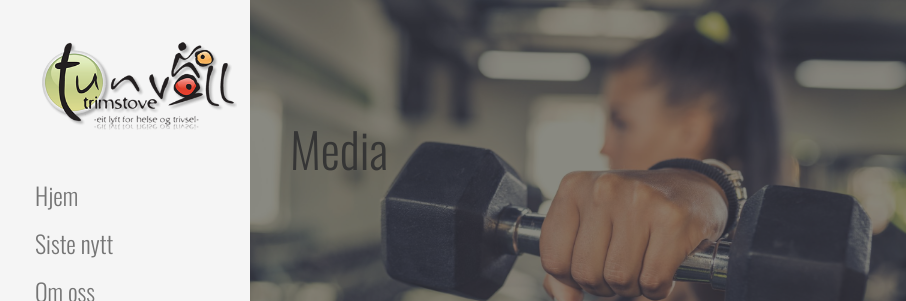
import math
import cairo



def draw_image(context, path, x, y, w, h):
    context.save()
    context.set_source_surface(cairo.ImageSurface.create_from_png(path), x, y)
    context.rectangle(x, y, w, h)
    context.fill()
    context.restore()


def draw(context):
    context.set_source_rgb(1, 1, 1)
    context.paint()
    draw_image(context, "images/1.png", 250, 0, 656, 301)
    context.set_source_rgb(245 / 255, 245 / 255, 245 / 255)
    context.rectangle(0, 0, 250, 301)
    context.fill()
    draw_image(context, "images/2.png", 42, 42, 195, 88)
    context.select_font_face("Oswald Light")
    context.set_font_size(48)
    context.set_source_rgb(53 / 255, 53 / 255, 53 / 255)
    context.move_to(290, 170)
    context.show_text("Media")
    context.set_font_size(24)
    context.set_source_rgb(117 / 255, 117 / 255, 117 / 255)
    context.move_to(35, 206)
    context.show_text("Hjem")
    context.move_to(35, 254)
    context.show_text("Siste nytt")
    context.move_to(35, 302)
    context.show_text("Om oss")


surface = cairo.ImageSurface(cairo.Format.RGB24, 906, 301)
context = cairo.Context(surface)
options = cairo.FontOptions()
options.set_hint_metrics(cairo.HintMetrics.OFF)
options.set_hint_style(cairo.HintStyle.NONE)
context.set_font_options(options)
context.set_miter_limit(4)
draw(context)
surface.write_to_png("out.png")
